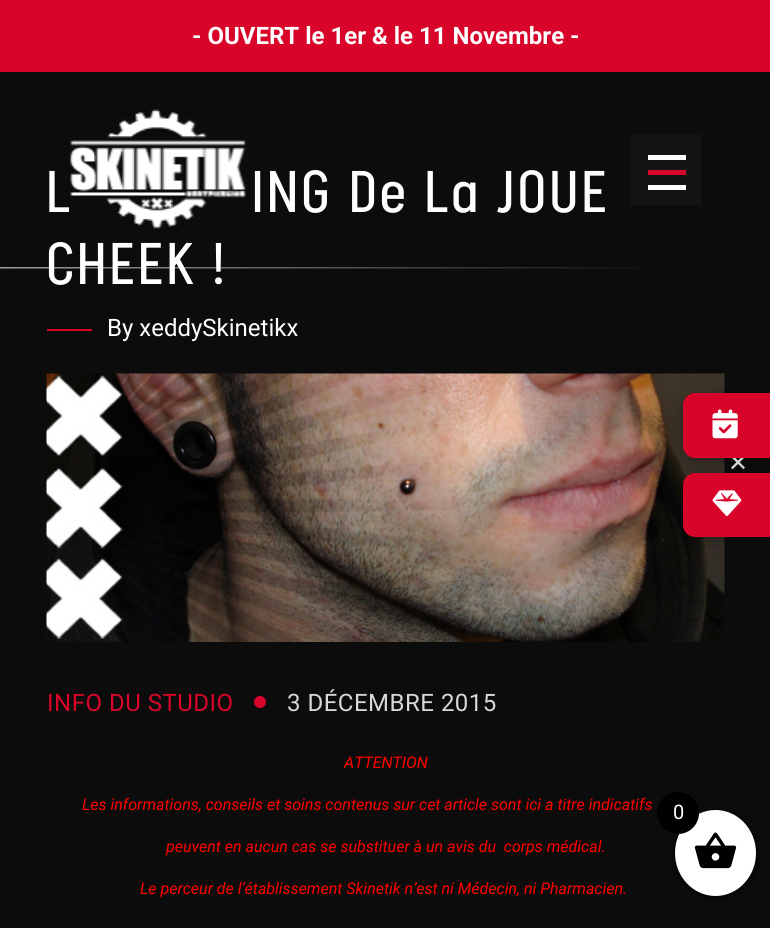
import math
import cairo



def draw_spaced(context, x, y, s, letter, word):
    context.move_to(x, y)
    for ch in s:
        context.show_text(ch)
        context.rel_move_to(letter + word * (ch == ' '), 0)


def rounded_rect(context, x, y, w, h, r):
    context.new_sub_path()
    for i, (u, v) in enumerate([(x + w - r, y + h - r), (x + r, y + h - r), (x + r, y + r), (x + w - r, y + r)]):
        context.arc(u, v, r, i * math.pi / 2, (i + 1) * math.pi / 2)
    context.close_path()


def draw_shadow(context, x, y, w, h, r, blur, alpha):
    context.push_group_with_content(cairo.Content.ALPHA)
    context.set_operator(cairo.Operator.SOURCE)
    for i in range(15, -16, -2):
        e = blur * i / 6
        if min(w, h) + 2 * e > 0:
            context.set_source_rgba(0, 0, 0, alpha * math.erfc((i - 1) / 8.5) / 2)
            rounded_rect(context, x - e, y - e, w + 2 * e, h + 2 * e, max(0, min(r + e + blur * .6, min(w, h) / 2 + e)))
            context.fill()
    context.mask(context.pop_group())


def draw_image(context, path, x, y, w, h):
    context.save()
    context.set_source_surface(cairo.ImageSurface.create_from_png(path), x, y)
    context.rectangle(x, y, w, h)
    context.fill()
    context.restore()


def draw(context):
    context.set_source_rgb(12 / 255, 12 / 255, 12 / 255)
    context.paint()
    context.set_source_rgb(217 / 255, 4 / 255, 41 / 255)
    context.rectangle(0, 0, 770, 72)
    context.fill()
    draw_image(context, "images/2.png", 70, 109, 176, 120)
    context.set_source_rgb(20 / 255, 20 / 255, 20 / 255)
    context.rectangle(631, 135, 70, 70)
    context.fill_preserve()
    context.set_source_rgb(18 / 255, 18 / 255, 18 / 255)
    context.stroke()
    context.set_source_rgb(1, 1, 1)
    context.rectangle(648, 155, 38, 5)
    context.fill()
    context.set_source_rgb(217 / 255, 4 / 255, 41 / 255)
    context.rectangle(648, 170, 38, 5)
    context.fill()
    context.set_source_rgb(1, 1, 1)
    context.rectangle(648, 185, 38, 5)
    context.fill()
    context.set_source_rgb(217 / 255, 4 / 255, 41 / 255)
    context.rectangle(47, 329, 45, 2)
    context.fill()
    draw_image(context, "images/3.png", 46, 373, 679, 269)
    context.arc(260, 702, 6, 0, 2 * math.pi)
    context.fill()
    context.set_source_rgb(0, 0, 0)
    draw_shadow(context, 683, 396, 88, 65, 12, 6, 0.3)
    draw_shadow(context, 675, 812, 81, 85, 40.5, 3, 1)
    context.set_source_rgb(1, 1, 1)
    context.new_path()
    context.move_to(715.5, 810)
    context.curve_to(738, 810, 756, 829.5, 756, 853)
    context.curve_to(756, 876.5, 738, 896, 715.5, 896)
    context.curve_to(693, 896, 675, 876.5, 675, 853)
    context.curve_to(675, 829.5, 693, 810, 715.5, 810)
    context.close_path()
    context.fill()
    context.set_source_rgb(0, 0, 0)
    context.arc(678, 813, 21, 0, 2 * math.pi)
    context.fill()
    draw_image(context, "images/6.png", 694, 832, 43, 37)
    context.select_font_face("Roboto", cairo.FontSlant.NORMAL, cairo.FontWeight.BOLD)
    context.set_font_size(24)
    context.set_source_rgb(1, 1, 1)
    context.move_to(192, 44)
    context.show_text("- OUVERT le 1er & le 11 Novembre -")
    context.select_font_face("DejaVu Sans")
    context.set_source_rgb(216 / 255, 216 / 255, 216 / 255)
    context.move_to(728, 471)
    context.show_text("✕")
    context.select_font_face("Akshar")
    context.set_font_size(58.25)
    context.set_source_rgb(1, 1, 1)
    draw_spaced(context, 47, 212, "L", 4.7, 0)
    draw_spaced(context, 252, 212, "ING De La JOUE", 4.7, 0)
    draw_spaced(context, 47, 284, "CHEEK !", 4.7, 0)
    draw_image(context, "images/1.png", 0, 267, 641, 2)
    context.select_font_face("Roboto")
    context.set_font_size(24)
    context.move_to(107, 336)
    context.show_text("By xeddySkinetikx")
    context.set_source_rgb(217 / 255, 4 / 255, 41 / 255)
    draw_spaced(context, 47, 711, "INFO DU STUDIO", 0.5, 0)
    context.set_source_rgb(216 / 255, 216 / 255, 216 / 255)
    draw_spaced(context, 287, 711, "3 DÉCEMBRE 2015", 0.5, 0)
    context.select_font_face("Roboto", cairo.FontSlant.ITALIC)
    context.set_font_size(16)
    context.set_source_rgb(1, 0, 0)
    context.move_to(344, 768)
    context.show_text("ATTENTION")
    context.move_to(82, 810)
    context.show_text("Les informations, conseils et soins contenus sur cet article sont ici a titre indicatifs")
    context.move_to(166, 852)
    context.show_text("peuvent en aucun cas se substituer à un avis du  corps médical.")
    context.move_to(140, 894)
    context.show_text("Le perceur de l’établissement Skinetik n’est ni Médecin, ni Pharmacien.")
    context.set_source_rgb(217 / 255, 4 / 255, 41 / 255)
    context.new_path()
    context.move_to(695, 393)
    context.line_to(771, 393)
    context.line_to(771, 458)
    context.line_to(695, 458)
    context.curve_to(688.5, 458, 683, 452.5, 683, 446)
    context.line_to(683, 405)
    context.curve_to(683, 398.5, 688.5, 393, 695, 393)
    context.close_path()
    context.fill()
    draw_image(context, "images/4.png", 712, 409, 26, 30)
    context.set_source_rgb(0, 0, 0)
    draw_shadow(context, 683, 476, 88, 64, 12, 6, 0.3)
    context.set_source_rgb(217 / 255, 4 / 255, 41 / 255)
    context.new_path()
    context.move_to(695, 473)
    context.line_to(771, 473)
    context.line_to(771, 537)
    context.line_to(695, 537)
    context.curve_to(688.5, 537, 683, 531.5, 683, 525)
    context.line_to(683, 485)
    context.curve_to(683, 478.5, 688.5, 473, 695, 473)
    context.close_path()
    context.fill()
    draw_image(context, "images/5.png", 712, 490, 30, 26)
    context.select_font_face("Roboto")
    context.set_font_size(20)
    context.set_source_rgb(1, 1, 1)
    context.move_to(673, 819)
    context.show_text("0")


surface = cairo.ImageSurface(cairo.Format.RGB24, 770, 928)
context = cairo.Context(surface)
options = cairo.FontOptions()
options.set_hint_metrics(cairo.HintMetrics.OFF)
options.set_hint_style(cairo.HintStyle.NONE)
context.set_font_options(options)
context.set_miter_limit(4)
draw(context)
surface.write_to_png("out.png")
